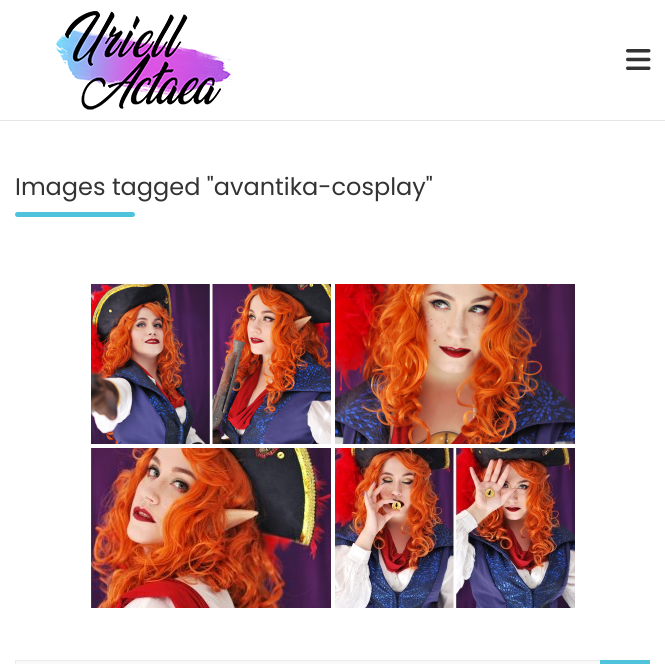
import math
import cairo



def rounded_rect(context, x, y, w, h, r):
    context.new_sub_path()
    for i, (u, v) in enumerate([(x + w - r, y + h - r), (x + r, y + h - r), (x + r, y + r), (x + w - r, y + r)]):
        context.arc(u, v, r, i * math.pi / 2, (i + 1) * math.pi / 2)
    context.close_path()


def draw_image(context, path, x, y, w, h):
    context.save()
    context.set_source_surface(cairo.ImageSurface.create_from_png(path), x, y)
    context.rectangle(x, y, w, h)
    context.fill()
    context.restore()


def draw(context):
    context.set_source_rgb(1, 1, 1)
    context.paint()
    context.set_source_rgb(230 / 255, 230 / 255, 230 / 255)
    context.rectangle(0, 120, 665, 1)
    context.fill()
    draw_image(context, "images/1.png", 56, 11, 177, 99)
    draw_image(context, "images/2.png", 626, 49, 25, 21)
    context.set_source_rgb(80 / 255, 195 / 255, 220 / 255)
    rounded_rect(context, 15, 212, 120, 5, 2.5)
    context.fill()
    draw_image(context, "images/3.png", 91, 284, 240, 160)
    draw_image(context, "images/4.png", 335, 284, 240, 160)
    draw_image(context, "images/5.png", 91, 448, 240, 160)
    draw_image(context, "images/6.png", 335, 448, 240, 160)
    context.set_source_rgb(249 / 255, 249 / 255, 249 / 255)
    context.rectangle(15.5, 660.5, 585, 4)
    context.fill_preserve()
    context.set_source_rgb(235 / 255, 235 / 255, 235 / 255)
    context.set_line_width(1)
    context.stroke()
    context.set_source_rgb(80 / 255, 195 / 255, 220 / 255)
    context.rectangle(600, 660, 50, 4)
    context.fill()
    context.select_font_face("Poppins")
    context.set_font_size(24)
    context.set_source_rgb(51 / 255, 51 / 255, 51 / 255)
    context.move_to(15, 195)
    context.show_text("Images tagged \"avantika-cosplay\"")


surface = cairo.ImageSurface(cairo.Format.RGB24, 665, 664)
context = cairo.Context(surface)
options = cairo.FontOptions()
options.set_hint_metrics(cairo.HintMetrics.OFF)
options.set_hint_style(cairo.HintStyle.NONE)
context.set_font_options(options)
context.set_miter_limit(4)
draw(context)
surface.write_to_png("out.png")
